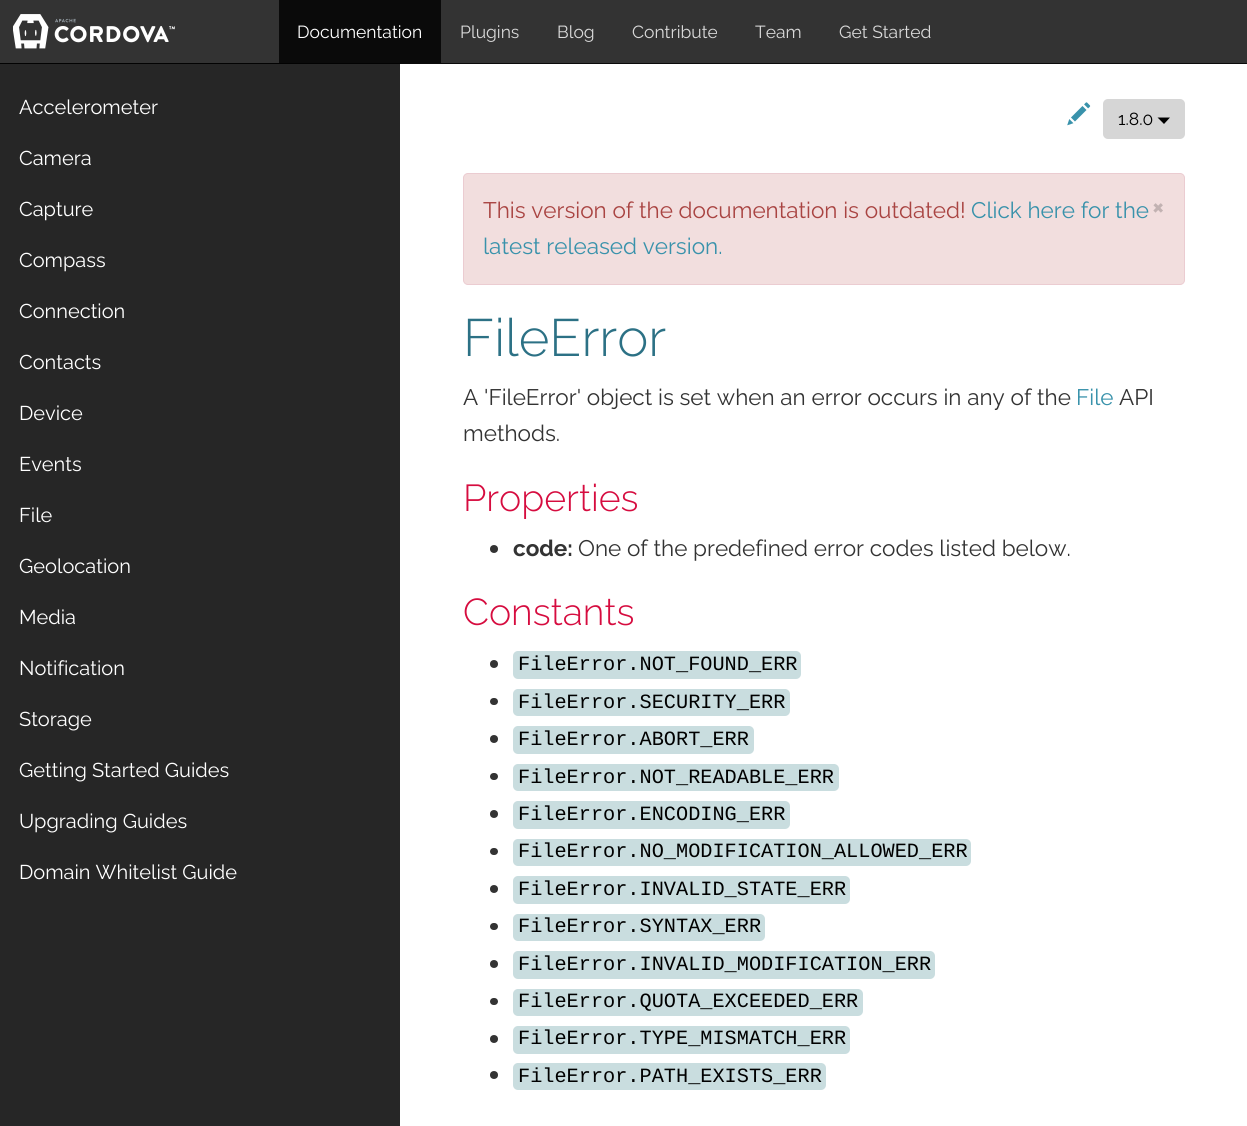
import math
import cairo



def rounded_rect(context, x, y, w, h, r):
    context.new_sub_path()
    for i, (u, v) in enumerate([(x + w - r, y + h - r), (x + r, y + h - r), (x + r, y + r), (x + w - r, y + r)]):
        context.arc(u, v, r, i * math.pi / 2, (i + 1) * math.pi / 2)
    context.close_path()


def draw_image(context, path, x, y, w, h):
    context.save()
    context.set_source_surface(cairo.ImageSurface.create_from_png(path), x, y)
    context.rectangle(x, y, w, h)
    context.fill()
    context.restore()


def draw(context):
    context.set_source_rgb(1, 1, 1)
    context.paint()
    context.set_source_rgb(51 / 255, 51 / 255, 51 / 255)
    context.rectangle(0, 0, 1247, 63)
    context.fill()
    context.set_source_rgb(10 / 255, 10 / 255, 10 / 255)
    context.rectangle(400, 63, 847, 1)
    context.fill()
    draw_image(context, "images/1.png", 13, 14, 162, 35)
    context.rectangle(279, 0, 162, 63)
    context.fill()
    context.set_source_rgb(38 / 255, 38 / 255, 38 / 255)
    context.rectangle(0, 64, 400, 1062)
    context.fill()
    context.set_source_rgb(2 / 255, 2 / 255, 2 / 255)
    context.rectangle(0, 63, 400, 1)
    context.fill()
    draw_image(context, "images/2.png", 1067, 102, 24, 24)
    context.set_source_rgb(214 / 255, 214 / 255, 214 / 255)
    rounded_rect(context, 1103, 99, 82, 40, 5)
    context.fill()
    context.set_source_rgb(0, 0, 0)
    context.new_path()
    context.move_to(1157.5, 117.5)
    context.line_to(1170, 117.5)
    context.line_to(1164, 124)
    context.close_path()
    context.fill()
    context.set_source_rgb(242 / 255, 222 / 255, 222 / 255)
    rounded_rect(context, 463.5, 173.5, 721, 111, 4.5)
    context.fill_preserve()
    context.set_source_rgb(235 / 255, 204 / 255, 209 / 255)
    context.set_line_width(1)
    context.stroke()
    context.set_source_rgb(51 / 255, 51 / 255, 51 / 255)
    context.arc(494, 549, 4, 0, 2 * math.pi)
    context.fill()
    context.arc(494, 664, 4, 0, 2 * math.pi)
    context.fill()
    context.set_source_rgb(201 / 255, 221 / 255, 223 / 255)
    rounded_rect(context, 513, 651, 288, 28, 5)
    context.fill()
    context.set_source_rgb(51 / 255, 51 / 255, 51 / 255)
    rounded_rect(context, 490, 698, 8, 7, 3.5)
    context.fill()
    context.set_source_rgb(201 / 255, 221 / 255, 223 / 255)
    rounded_rect(context, 513, 689, 277, 27, 5)
    context.fill()
    context.set_source_rgb(51 / 255, 51 / 255, 51 / 255)
    context.arc(494, 739, 4, 0, 2 * math.pi)
    context.fill()
    context.set_source_rgb(201 / 255, 221 / 255, 223 / 255)
    rounded_rect(context, 513, 726, 241, 28, 5)
    context.fill()
    context.set_source_rgb(51 / 255, 51 / 255, 51 / 255)
    rounded_rect(context, 490, 773, 8, 7, 3.5)
    context.fill()
    context.set_source_rgb(201 / 255, 221 / 255, 223 / 255)
    rounded_rect(context, 513, 764, 326, 27, 5)
    context.fill()
    context.set_source_rgb(51 / 255, 51 / 255, 51 / 255)
    context.arc(494, 814, 4, 0, 2 * math.pi)
    context.fill()
    context.set_source_rgb(201 / 255, 221 / 255, 223 / 255)
    rounded_rect(context, 513, 801, 277, 28, 5)
    context.fill()
    context.set_source_rgb(51 / 255, 51 / 255, 51 / 255)
    rounded_rect(context, 490, 848, 8, 7, 3.5)
    context.fill()
    context.set_source_rgb(201 / 255, 221 / 255, 223 / 255)
    rounded_rect(context, 513, 839, 458, 27, 5)
    context.fill()
    context.set_source_rgb(51 / 255, 51 / 255, 51 / 255)
    context.arc(494, 889, 4, 0, 2 * math.pi)
    context.fill()
    context.set_source_rgb(201 / 255, 221 / 255, 223 / 255)
    rounded_rect(context, 513, 876, 337, 28, 5)
    context.fill()
    context.set_source_rgb(51 / 255, 51 / 255, 51 / 255)
    rounded_rect(context, 490, 923, 8, 7, 3.5)
    context.fill()
    context.set_source_rgb(201 / 255, 221 / 255, 223 / 255)
    rounded_rect(context, 513, 914, 252, 27, 5)
    context.fill()
    context.set_source_rgb(51 / 255, 51 / 255, 51 / 255)
    context.arc(494, 964, 4, 0, 2 * math.pi)
    context.fill()
    context.set_source_rgb(201 / 255, 221 / 255, 223 / 255)
    rounded_rect(context, 513, 951, 422, 28, 5)
    context.fill()
    context.set_source_rgb(51 / 255, 51 / 255, 51 / 255)
    rounded_rect(context, 490, 998, 8, 7, 3.5)
    context.fill()
    context.set_source_rgb(201 / 255, 221 / 255, 223 / 255)
    rounded_rect(context, 513, 989, 350, 27, 5)
    context.fill()
    context.set_source_rgb(51 / 255, 51 / 255, 51 / 255)
    context.arc(494, 1039, 4, 0, 2 * math.pi)
    context.fill()
    context.set_source_rgb(201 / 255, 221 / 255, 223 / 255)
    rounded_rect(context, 513, 1026, 337, 28, 5)
    context.fill()
    context.set_source_rgb(51 / 255, 51 / 255, 51 / 255)
    context.arc(494, 1075, 4, 0, 2 * math.pi)
    context.fill()
    context.set_source_rgb(201 / 255, 221 / 255, 223 / 255)
    rounded_rect(context, 513, 1063, 313, 27, 5)
    context.fill()
    context.select_font_face("Raleway")
    context.set_font_size(17.5)
    context.set_source_rgb(1, 1, 1)
    context.move_to(297, 38)
    context.show_text("Documentation")
    context.set_source_rgb(217 / 255, 217 / 255, 217 / 255)
    context.move_to(460, 38)
    context.show_text("Plugins")
    context.move_to(557, 38)
    context.show_text("Blog")
    context.move_to(632, 38)
    context.show_text("Contribute")
    context.move_to(755, 38)
    context.show_text("Team")
    context.move_to(839, 38)
    context.show_text("Get Started")
    context.set_font_size(20)
    context.set_source_rgb(1, 1, 1)
    context.move_to(19, 114)
    context.show_text("Accelerometer")
    context.move_to(19, 165)
    context.show_text("Camera")
    context.move_to(19, 216)
    context.show_text("Capture")
    context.move_to(19, 267)
    context.show_text("Compass")
    context.move_to(19, 318)
    context.show_text("Connection")
    context.move_to(19, 369)
    context.show_text("Contacts")
    context.move_to(19, 420)
    context.show_text("Device")
    context.move_to(19, 471)
    context.show_text("Events")
    context.move_to(19, 522)
    context.show_text("File")
    context.move_to(19, 573)
    context.show_text("Geolocation")
    context.move_to(19, 624)
    context.show_text("Media")
    context.move_to(19, 675)
    context.show_text("Notification")
    context.move_to(19, 726)
    context.show_text("Storage")
    context.move_to(19, 777)
    context.show_text("Getting Started Guides")
    context.move_to(19, 828)
    context.show_text("Upgrading Guides")
    context.move_to(19, 879)
    context.show_text("Domain Whitelist Guide")
    context.set_font_size(17.5)
    context.set_source_rgb(0, 0, 0)
    context.move_to(1118, 125)
    context.show_text("1.8.0")
    context.set_font_size(22.5)
    context.set_source_rgb(169 / 255, 68 / 255, 66 / 255)
    context.move_to(483, 218)
    context.show_text("This version of the documentation is outdated!")
    context.set_source_rgb(57 / 255, 146 / 255, 171 / 255)
    context.move_to(971, 218)
    context.show_text("Click here for the")
    context.select_font_face("Raleway", cairo.FontSlant.NORMAL, cairo.FontWeight.BOLD)
    context.set_font_size(26)
    context.set_source_rgb(194 / 255, 178 / 255, 178 / 255)
    context.move_to(1152, 215)
    context.show_text("×")
    context.select_font_face("Raleway")
    context.set_font_size(22.5)
    context.set_source_rgb(57 / 255, 146 / 255, 171 / 255)
    context.move_to(483, 254)
    context.show_text("latest released version.")
    context.select_font_face("Raleway Light")
    context.set_font_size(52.5)
    context.set_source_rgb(44 / 255, 113 / 255, 133 / 255)
    context.move_to(463, 356)
    context.show_text("FileError")
    context.select_font_face("Raleway")
    context.set_font_size(22.5)
    context.set_source_rgb(51 / 255, 51 / 255, 51 / 255)
    context.move_to(463, 405)
    context.show_text("A 'FileError' object is set when an error occurs in any of the")
    context.set_source_rgb(57 / 255, 146 / 255, 171 / 255)
    context.move_to(1076, 405)
    context.show_text("File")
    context.set_source_rgb(51 / 255, 51 / 255, 51 / 255)
    context.move_to(1119, 405)
    context.show_text("API")
    context.move_to(463, 441)
    context.show_text("methods.")
    context.select_font_face("Raleway Light")
    context.set_font_size(37.5)
    context.set_source_rgb(214 / 255, 12 / 255, 63 / 255)
    context.move_to(463, 511)
    context.show_text("Properties")
    context.select_font_face("Raleway", cairo.FontSlant.NORMAL, cairo.FontWeight.BOLD)
    context.set_font_size(22.5)
    context.set_source_rgb(51 / 255, 51 / 255, 51 / 255)
    context.move_to(513, 556)
    context.show_text("code:")
    context.select_font_face("Raleway")
    context.move_to(578, 556)
    context.show_text("One of the predefined error codes listed below.")
    context.select_font_face("Raleway Light")
    context.set_font_size(37.5)
    context.set_source_rgb(214 / 255, 12 / 255, 63 / 255)
    context.move_to(463, 625)
    context.show_text("Constants")
    context.select_font_face("Liberation Mono")
    context.set_font_size(20.25)
    context.set_source_rgb(0, 0, 0)
    context.move_to(518, 670)
    context.show_text("FileError.NOT_FOUND_ERR")
    context.move_to(518, 708)
    context.show_text("FileError.SECURITY_ERR")
    context.move_to(518, 745)
    context.show_text("FileError.ABORT_ERR")
    context.move_to(518, 783)
    context.show_text("FileError.NOT_READABLE_ERR")
    context.move_to(518, 820)
    context.show_text("FileError.ENCODING_ERR")
    context.move_to(518, 857)
    context.show_text("FileError.NO_MODIFICATION_ALLOWED_ERR")
    context.move_to(518, 895)
    context.show_text("FileError.INVALID_STATE_ERR")
    context.move_to(518, 932)
    context.show_text("FileError.SYNTAX_ERR")
    context.move_to(518, 970)
    context.show_text("FileError.INVALID_MODIFICATION_ERR")
    context.move_to(518, 1007)
    context.show_text("FileError.QUOTA_EXCEEDED_ERR")
    context.move_to(518, 1044)
    context.show_text("FileError.TYPE_MISMATCH_ERR")
    context.move_to(518, 1082)
    context.show_text("FileError.PATH_EXISTS_ERR")


surface = cairo.ImageSurface(cairo.Format.RGB24, 1247, 1126)
context = cairo.Context(surface)
options = cairo.FontOptions()
options.set_hint_metrics(cairo.HintMetrics.OFF)
options.set_hint_style(cairo.HintStyle.NONE)
context.set_font_options(options)
context.set_miter_limit(4)
draw(context)
surface.write_to_png("out.png")
